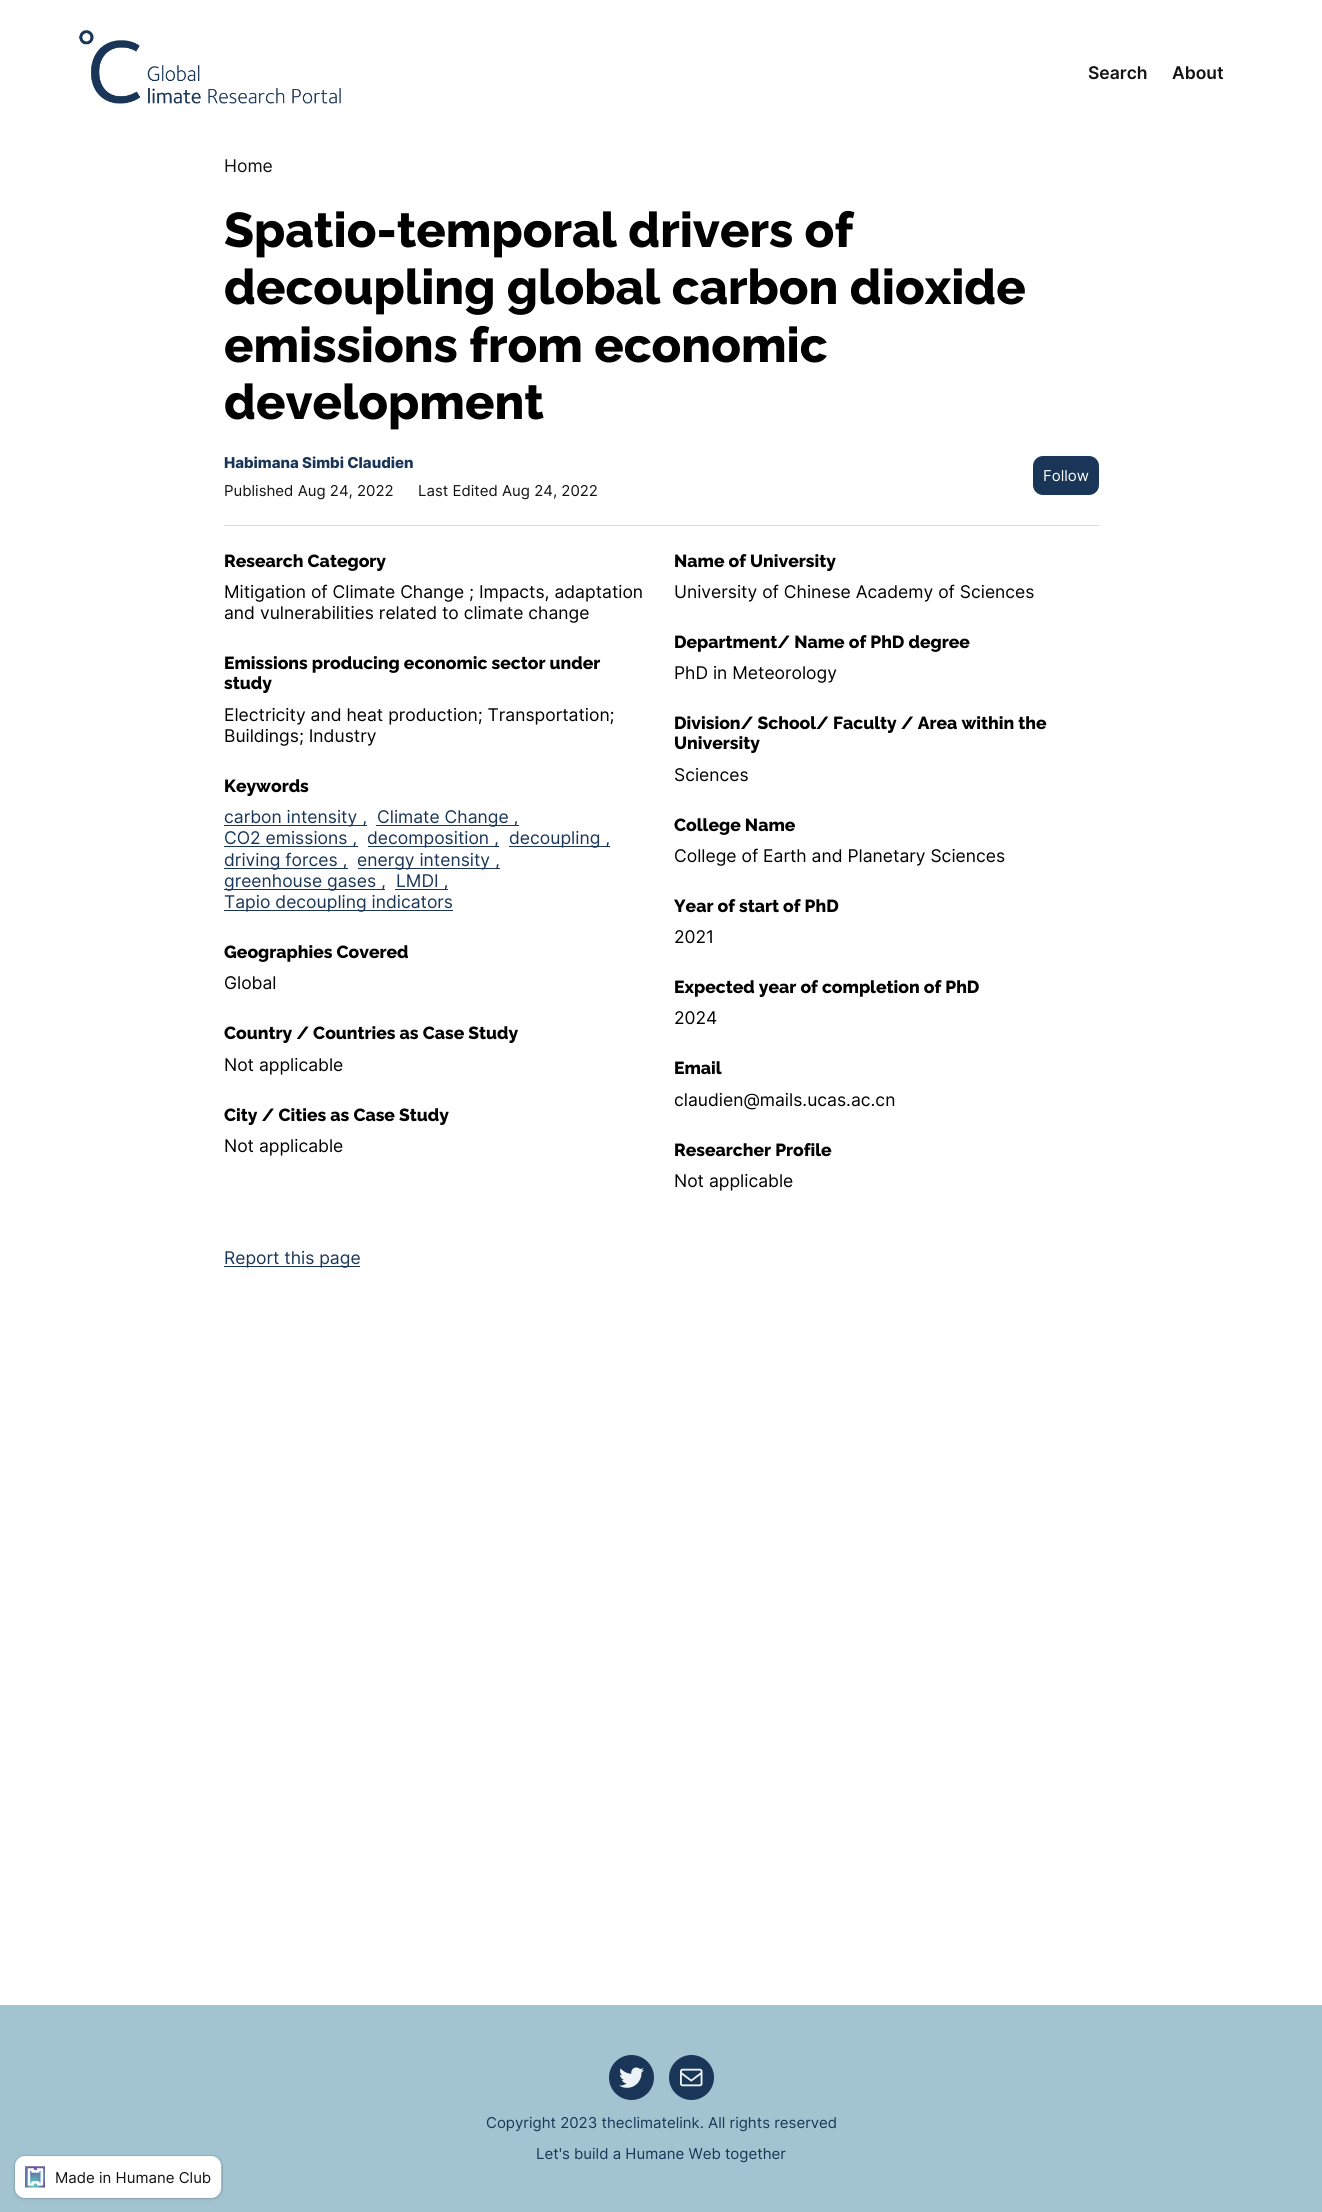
import math
import cairo



def rounded_rect(context, x, y, w, h, r):
    context.new_sub_path()
    for i, (u, v) in enumerate([(x + w - r, y + h - r), (x + r, y + h - r), (x + r, y + r), (x + w - r, y + r)]):
        context.arc(u, v, r, i * math.pi / 2, (i + 1) * math.pi / 2)
    context.close_path()


def draw_shadow(context, x, y, w, h, r, blur, alpha):
    context.push_group_with_content(cairo.Content.ALPHA)
    context.set_operator(cairo.Operator.SOURCE)
    for i in range(15, -16, -2):
        e = blur * i / 6
        if min(w, h) + 2 * e > 0:
            context.set_source_rgba(0, 0, 0, alpha * math.erfc((i - 1) / 8.5) / 2)
            rounded_rect(context, x - e, y - e, w + 2 * e, h + 2 * e, max(0, min(r + e + blur * .6, min(w, h) / 2 + e)))
            context.fill()
    context.mask(context.pop_group())


def draw_image(context, path, x, y, w, h):
    context.save()
    context.set_source_surface(cairo.ImageSurface.create_from_png(path), x, y)
    context.rectangle(x, y, w, h)
    context.fill()
    context.restore()


def draw(context):
    context.set_source_rgb(1, 1, 1)
    context.paint()
    draw_image(context, "images/1.png", 79, 30, 262, 74)
    context.set_source_rgb(25 / 255, 54 / 255, 88 / 255)
    rounded_rect(context, 1033, 456, 66, 39, 10)
    context.fill()
    context.set_source_rgb(220 / 255, 220 / 255, 220 / 255)
    context.rectangle(224, 525, 875, 1)
    context.fill()
    context.set_source_rgb(25 / 255, 54 / 255, 88 / 255)
    context.rectangle(224, 825, 143, 1)
    context.fill()
    context.rectangle(376, 825, 143, 1)
    context.fill()
    context.rectangle(224, 846, 134, 1)
    context.fill()
    context.rectangle(368, 846, 131, 1)
    context.fill()
    context.rectangle(509, 846, 101, 1)
    context.fill()
    context.rectangle(224, 868, 124, 1)
    context.fill()
    context.rectangle(358, 868, 142, 1)
    context.fill()
    context.rectangle(224, 889, 161, 1)
    context.fill()
    context.rectangle(395, 889, 53, 1)
    context.fill()
    context.rectangle(224, 910, 229, 1)
    context.fill()
    context.rectangle(224, 1266, 136, 1)
    context.fill()
    context.set_source_rgb(161 / 255, 196 / 255, 208 / 255)
    context.rectangle(0, 2005, 1322, 207)
    context.fill()
    context.set_source_rgb(25 / 255, 54 / 255, 88 / 255)
    context.arc(631.5, 2077.5, 22.5, 0, 2 * math.pi)
    context.fill()
    draw_image(context, "images/2.png", 619, 2067, 25, 21)
    context.arc(691.5, 2077.5, 22.5, 0, 2 * math.pi)
    context.fill()
    draw_image(context, "images/3.png", 680, 2068, 23, 19)
    context.set_source_rgb(0, 0, 0)
    draw_shadow(context, 15, 2158, 206, 41, 10, 2, 0.1)
    rounded_rect(context, 14.5, 2155.5, 208, 43, 10.5)
    context.set_source_rgba(0, 0, 0, 0.1)
    context.set_line_width(1)
    context.stroke()
    context.set_source_rgb(1, 1, 1)
    rounded_rect(context, 15, 2156, 206, 42, 10)
    context.fill()
    draw_image(context, "images/4.png", 25, 2166, 20, 22)
    context.select_font_face("Inter SemiBold")
    context.set_font_size(17.5)
    context.set_source_rgb(18 / 255, 18 / 255, 18 / 255)
    context.move_to(1088, 79)
    context.show_text("Search")
    context.move_to(1172, 79)
    context.show_text("About")
    context.select_font_face("Inter")
    context.move_to(224, 172)
    context.show_text("Home")
    context.select_font_face("Raleway ExtraBold")
    context.set_font_size(48.8)
    context.set_source_rgb(0, 0, 0)
    context.move_to(224, 247)
    context.show_text("Spatio-temporal drivers of")
    context.move_to(224, 304)
    context.show_text("decoupling global carbon dioxide")
    context.move_to(224, 362)
    context.show_text("emissions from economic")
    context.move_to(224, 419)
    context.show_text("development")
    context.select_font_face("Inter ExtraBold")
    context.set_font_size(15)
    context.set_source_rgb(25 / 255, 54 / 255, 88 / 255)
    context.move_to(224, 468)
    context.show_text("Habimana Simbi Claudien")
    context.select_font_face("Inter")
    context.set_source_rgb(18 / 255, 18 / 255, 18 / 255)
    context.move_to(224, 496)
    context.show_text("Published Aug 24, 2022")
    context.move_to(418, 496)
    context.show_text("Last Edited Aug 24, 2022")
    context.set_source_rgb(1, 1, 1)
    context.move_to(1043, 481)
    context.show_text("Follow")
    context.select_font_face("Raleway ExtraBold")
    context.set_font_size(17.5)
    context.set_source_rgb(0, 0, 0)
    context.move_to(224, 567)
    context.show_text("Research Category")
    context.select_font_face("Inter")
    context.move_to(224, 598)
    context.show_text("Mitigation of Climate Change ; Impacts, adaptation")
    context.move_to(224, 619)
    context.show_text("and vulnerabilities related to climate change")
    context.select_font_face("Raleway ExtraBold")
    context.move_to(224, 669)
    context.show_text("Emissions producing economic sector under")
    context.move_to(224, 689)
    context.show_text("study")
    context.select_font_face("Inter")
    context.move_to(224, 721)
    context.show_text("Electricity and heat production; Transportation;")
    context.move_to(224, 742)
    context.show_text("Buildings; Industry")
    context.select_font_face("Raleway ExtraBold")
    context.move_to(224, 792)
    context.show_text("Keywords")
    context.select_font_face("Inter")
    context.set_source_rgb(25 / 255, 54 / 255, 88 / 255)
    context.move_to(224, 823)
    context.show_text("carbon intensity ,")
    context.move_to(377, 823)
    context.show_text("Climate Change ,")
    context.move_to(224, 844)
    context.show_text("CO2 emissions ,")
    context.move_to(367, 844)
    context.show_text("decomposition ,")
    context.move_to(509, 844)
    context.show_text("decoupling ,")
    context.move_to(224, 866)
    context.show_text("driving forces ,")
    context.move_to(357, 866)
    context.show_text("energy intensity ,")
    context.move_to(224, 887)
    context.show_text("greenhouse gases ,")
    context.move_to(396, 887)
    context.show_text("LMDI ,")
    context.move_to(224, 908)
    context.show_text("Tapio decoupling indicators")
    context.select_font_face("Raleway ExtraBold")
    context.set_source_rgb(0, 0, 0)
    context.move_to(224, 958)
    context.show_text("Geographies Covered")
    context.select_font_face("Inter")
    context.move_to(224, 989)
    context.show_text("Global")
    context.select_font_face("Raleway ExtraBold")
    context.move_to(224, 1039)
    context.show_text("Country / Countries as Case Study")
    context.select_font_face("Inter")
    context.move_to(224, 1071)
    context.show_text("Not applicable")
    context.select_font_face("Raleway ExtraBold")
    context.move_to(224, 1121)
    context.show_text("City / Cities as Case Study")
    context.select_font_face("Inter")
    context.move_to(224, 1152)
    context.show_text("Not applicable")
    context.select_font_face("Raleway ExtraBold")
    context.move_to(674, 567)
    context.show_text("Name of University")
    context.select_font_face("Inter")
    context.move_to(674, 598)
    context.show_text("University of Chinese Academy of Sciences")
    context.select_font_face("Raleway ExtraBold")
    context.move_to(674, 648)
    context.show_text("Department/ Name of PhD degree")
    context.select_font_face("Inter")
    context.move_to(674, 679)
    context.show_text("PhD in Meteorology")
    context.select_font_face("Raleway ExtraBold")
    context.move_to(674, 729)
    context.show_text("Division/ School/ Faculty / Area within the")
    context.move_to(674, 749)
    context.show_text("University")
    context.select_font_face("Inter")
    context.move_to(674, 781)
    context.show_text("Sciences")
    context.select_font_face("Raleway ExtraBold")
    context.move_to(674, 831)
    context.show_text("College Name")
    context.select_font_face("Inter")
    context.move_to(674, 862)
    context.show_text("College of Earth and Planetary Sciences")
    context.select_font_face("Raleway ExtraBold")
    context.move_to(674, 912)
    context.show_text("Year of start of PhD")
    context.select_font_face("Inter")
    context.move_to(674, 943)
    context.show_text("2021")
    context.select_font_face("Raleway ExtraBold")
    context.move_to(674, 993)
    context.show_text("Expected year of completion of PhD")
    context.select_font_face("Inter")
    context.move_to(674, 1024)
    context.show_text("2024")
    context.select_font_face("Raleway ExtraBold")
    context.move_to(674, 1074)
    context.show_text("Email")
    context.select_font_face("Inter")
    context.move_to(674, 1106)
    context.show_text("claudien@mails.ucas.ac.cn")
    context.select_font_face("Raleway ExtraBold")
    context.move_to(674, 1156)
    context.show_text("Researcher Profile")
    context.select_font_face("Inter")
    context.move_to(674, 1187)
    context.show_text("Not applicable")
    context.set_source_rgb(25 / 255, 54 / 255, 88 / 255)
    context.move_to(224, 1264)
    context.show_text("Report this page")
    context.set_font_size(15)
    context.move_to(486, 2128)
    context.show_text("Copyright 2023 theclimatelink. All rights reserved")
    context.move_to(536, 2159)
    context.show_text("Let's build a Humane Web together")
    context.set_source_rgb(18 / 255, 18 / 255, 18 / 255)
    context.move_to(55, 2183)
    context.show_text("Made in Humane Club")


surface = cairo.ImageSurface(cairo.Format.RGB24, 1322, 2212)
context = cairo.Context(surface)
options = cairo.FontOptions()
options.set_hint_metrics(cairo.HintMetrics.OFF)
options.set_hint_style(cairo.HintStyle.NONE)
context.set_font_options(options)
context.set_miter_limit(4)
draw(context)
surface.write_to_png("out.png")
